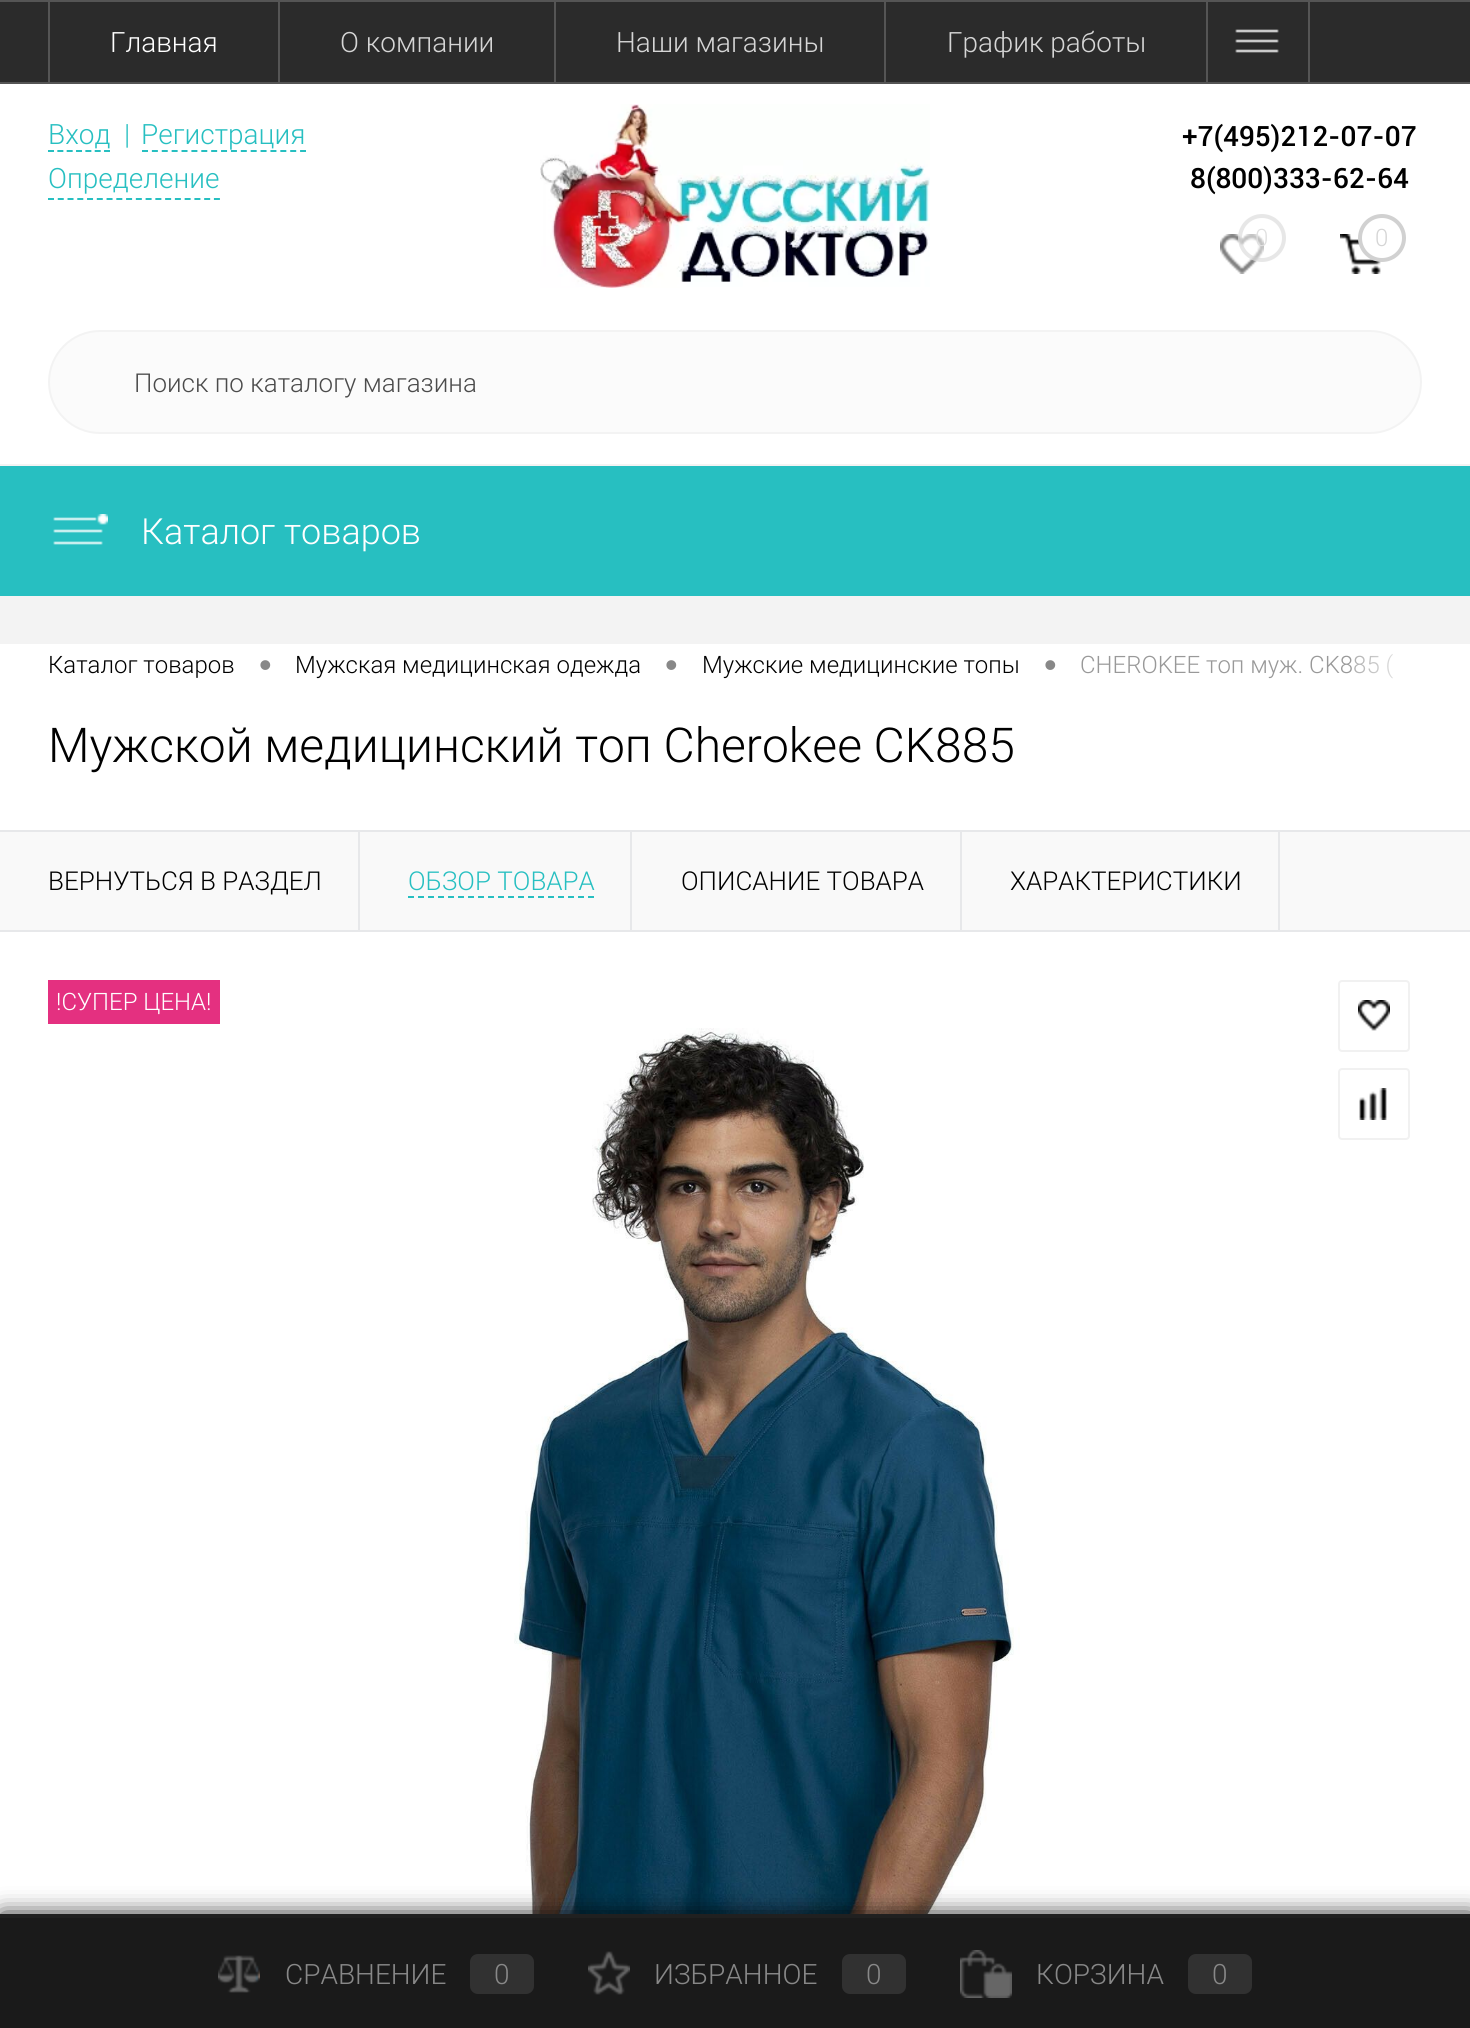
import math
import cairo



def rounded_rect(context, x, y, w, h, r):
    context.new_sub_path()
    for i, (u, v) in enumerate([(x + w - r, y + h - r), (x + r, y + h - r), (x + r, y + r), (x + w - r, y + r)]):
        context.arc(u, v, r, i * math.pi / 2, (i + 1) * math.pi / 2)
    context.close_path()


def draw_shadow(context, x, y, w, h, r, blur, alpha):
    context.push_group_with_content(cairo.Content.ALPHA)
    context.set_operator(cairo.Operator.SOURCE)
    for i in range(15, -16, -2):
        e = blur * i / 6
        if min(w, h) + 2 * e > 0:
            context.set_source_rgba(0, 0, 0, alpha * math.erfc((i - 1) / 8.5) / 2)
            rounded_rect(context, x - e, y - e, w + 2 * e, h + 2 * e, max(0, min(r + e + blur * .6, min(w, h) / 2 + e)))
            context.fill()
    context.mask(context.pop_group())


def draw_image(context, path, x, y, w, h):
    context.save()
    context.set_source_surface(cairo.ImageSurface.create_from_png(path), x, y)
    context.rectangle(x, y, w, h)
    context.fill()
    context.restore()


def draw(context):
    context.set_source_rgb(243 / 255, 243 / 255, 243 / 255)
    context.paint()
    context.set_source_rgb(43 / 255, 43 / 255, 43 / 255)
    context.rectangle(0, 2, 1470, 80)
    context.fill()
    context.set_source_rgb(85 / 255, 85 / 255, 85 / 255)
    context.rectangle(0, 0, 1470, 2)
    context.fill()
    context.rectangle(0, 82, 1470, 2)
    context.fill()
    context.rectangle(48, 2, 2, 80)
    context.fill()
    context.rectangle(278, 2, 2, 80)
    context.fill()
    context.rectangle(554, 2, 2, 80)
    context.fill()
    context.rectangle(884, 2, 2, 80)
    context.fill()
    context.rectangle(1206, 2, 2, 80)
    context.fill()
    context.rectangle(1308, 2, 2, 80)
    context.fill()
    draw_image(context, "images/1.png", 1235, 29, 44, 24)
    context.set_source_rgb(1, 1, 1)
    context.rectangle(0, 84, 1470, 380)
    context.fill()
    context.new_path()
    context.move_to(48, 151)
    context.line_to(110, 151)
    context.set_source_rgb(39 / 255, 191 / 255, 193 / 255)
    context.set_dash([6, 3.34])
    context.stroke()
    context.new_path()
    context.move_to(142, 151)
    context.line_to(306, 151)
    context.set_dash([6, 3.88])
    context.stroke()
    context.new_path()
    context.move_to(48, 199)
    context.line_to(220, 199)
    context.set_dash([6, 3.76])
    context.stroke()
    context.set_source_rgb(251 / 255, 251 / 255, 251 / 255)
    rounded_rect(context, 49, 331, 1372, 102, 51)
    context.fill_preserve()
    context.set_source_rgb(243 / 255, 243 / 255, 243 / 255)
    context.set_dash([])
    context.stroke()
    draw_image(context, "images/2.png", 540, 104, 390, 184)
    draw_image(context, "images/3.png", 1220, 234, 44, 40)
    context.set_source_rgba(1, 1, 1, 0.5)
    context.arc(1262, 238, 24, 0, 2 * math.pi)
    context.fill()
    context.arc(1262, 238, 22, 0, 2 * math.pi)
    context.set_source_rgba(209 / 255, 209 / 255, 209 / 255, 0.5)
    context.set_line_width(4)
    context.stroke()
    draw_image(context, "images/4.png", 1340, 234, 41, 40)
    context.set_source_rgb(1, 1, 1)
    context.arc(1382, 238, 22, 0, 2 * math.pi)
    context.fill_preserve()
    context.set_source_rgb(209 / 255, 209 / 255, 209 / 255)
    context.stroke()
    context.set_source_rgb(39 / 255, 191 / 255, 193 / 255)
    context.rectangle(0, 466, 1470, 130)
    context.fill()
    draw_image(context, "images/5.png", 53, 514, 55, 31)
    context.set_source_rgb(1, 1, 1)
    context.rectangle(0, 644, 1470, 1270)
    context.fill()
    context.set_source_rgb(231 / 255, 232 / 255, 234 / 255)
    context.rectangle(0, 830, 1470, 2)
    context.fill()
    context.set_source_rgb(249 / 255, 249 / 255, 249 / 255)
    context.rectangle(0, 832, 1470, 98)
    context.fill()
    context.set_source_rgb(231 / 255, 232 / 255, 234 / 255)
    context.rectangle(0, 930, 1470, 2)
    context.fill()
    context.rectangle(358, 832, 2, 98)
    context.fill()
    context.rectangle(630, 832, 2, 98)
    context.fill()
    context.new_path()
    context.move_to(408, 897)
    context.line_to(594, 897)
    context.set_source_rgb(39 / 255, 191 / 255, 193 / 255)
    context.set_line_width(2)
    context.set_dash([6, 4])
    context.stroke()
    context.set_source_rgb(231 / 255, 232 / 255, 234 / 255)
    context.rectangle(960, 832, 2, 98)
    context.fill()
    context.rectangle(1278, 832, 2, 98)
    context.fill()
    context.set_source_rgb(228 / 255, 48 / 255, 128 / 255)
    context.rectangle(48, 980, 172, 44)
    context.fill()
    rounded_rect(context, 1339, 981, 70, 70, 3)
    context.set_source_rgb(241 / 255, 241 / 255, 241 / 255)
    context.set_dash([])
    context.stroke()
    draw_image(context, "images/6.png", 1358, 1000, 32, 31)
    rounded_rect(context, 1339, 1069, 70, 70, 3)
    context.stroke()
    draw_image(context, "images/7.png", 1359, 1088, 28, 32)
    draw_image(context, "images/8.png", 514, 1028, 506, 886)
    context.set_source_rgb(0, 0, 0)
    draw_shadow(context, 2, 1916, 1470, 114, 0, 12, 1)
    context.set_source_rgb(26 / 255, 26 / 255, 26 / 255)
    context.rectangle(0, 1918, 1470, 110)
    context.fill()
    context.set_source_rgb(32 / 255, 32 / 255, 32 / 255)
    context.rectangle(0, 1914, 1470, 4)
    context.fill()
    draw_image(context, "images/9.png", 218, 1955, 42, 38)
    context.set_source_rgb(49 / 255, 49 / 255, 49 / 255)
    rounded_rect(context, 470, 1954, 64, 40, 8)
    context.fill()
    draw_image(context, "images/10.png", 588, 1951, 42, 44)
    rounded_rect(context, 842, 1954, 64, 40, 8)
    context.fill()
    draw_image(context, "images/11.png", 960, 1950, 52, 48)
    rounded_rect(context, 1188, 1954, 64, 40, 8)
    context.fill()
    context.select_font_face("Roboto Light")
    context.set_font_size(28)
    context.set_source_rgb(1, 1, 1)
    context.move_to(110, 52)
    context.show_text("Главная")
    context.set_source_rgb(213 / 255, 213 / 255, 213 / 255)
    context.move_to(340, 52)
    context.show_text("О компании")
    context.move_to(616, 52)
    context.show_text("Наши магазины")
    context.move_to(947, 52)
    context.show_text("График работы")
    context.set_source_rgb(39 / 255, 191 / 255, 193 / 255)
    context.move_to(48, 144)
    context.show_text("Вход")
    context.move_to(124, 144)
    context.show_text("|")
    context.move_to(141, 144)
    context.show_text("Регистрация")
    context.move_to(48, 188)
    context.show_text("Определение")
    context.set_font_size(26)
    context.set_source_rgb(75 / 255, 75 / 255, 75 / 255)
    context.move_to(134, 392)
    context.show_text("Поиск по каталогу магазина")
    context.select_font_face("Roboto Medium")
    context.set_font_size(28)
    context.set_source_rgb(0, 0, 0)
    context.move_to(1182, 146)
    context.show_text("+7(495)212-07-07")
    context.move_to(1190, 188)
    context.show_text("8(800)333-62-64")
    context.select_font_face("Roboto Light")
    context.set_font_size(24)
    context.set_source_rgb(224 / 255, 224 / 255, 224 / 255)
    context.move_to(1255, 246)
    context.show_text("0")
    context.set_source_rgb(213 / 255, 213 / 255, 213 / 255)
    context.move_to(1375, 246)
    context.show_text("0")
    context.set_font_size(36)
    context.set_source_rgb(1, 1, 1)
    context.move_to(141, 544)
    context.show_text("Каталог товаров")
    context.set_font_size(24)
    context.set_source_rgb(0, 0, 0)
    context.move_to(48, 673)
    context.show_text("Каталог товаров")
    context.select_font_face("Liberation Sans")
    context.set_font_size(36)
    context.set_source_rgb(136 / 255, 136 / 255, 136 / 255)
    context.move_to(259, 677)
    context.show_text("•")
    context.select_font_face("Roboto Light")
    context.set_font_size(24)
    context.set_source_rgb(0, 0, 0)
    context.move_to(295, 673)
    context.show_text("Мужская медицинская одежда")
    context.select_font_face("Liberation Sans")
    context.set_font_size(36)
    context.set_source_rgb(136 / 255, 136 / 255, 136 / 255)
    context.move_to(665, 677)
    context.show_text("•")
    context.select_font_face("Roboto Light")
    context.set_font_size(24)
    context.set_source_rgb(0, 0, 0)
    context.move_to(702, 673)
    context.show_text("Мужские медицинские топы")
    context.select_font_face("Liberation Sans")
    context.set_font_size(36)
    context.set_source_rgb(136 / 255, 136 / 255, 136 / 255)
    context.move_to(1044, 677)
    context.show_text("•")
    context.select_font_face("Roboto Light")
    context.set_font_size(24)
    context.set_source_rgb(153 / 255, 153 / 255, 153 / 255)
    context.move_to(1080, 673)
    context.show_text("CHEROKEE топ муж. CK885 (")
    gradient = cairo.LinearGradient(1352, 665, 1422, 665)
    gradient.add_color_stop_rgba(0, 1, 1, 1, 0.2)
    gradient.add_color_stop_rgba(1, 1, 1, 1, 1)
    context.set_source(gradient)
    context.rectangle(1352, 654, 42, 25)
    context.fill()
    context.set_font_size(48)
    context.set_source_rgb(0, 0, 0)
    context.move_to(48, 762)
    context.show_text("Мужской медицинский топ Cherokee CK885")
    context.set_font_size(26)
    context.move_to(48, 890)
    context.show_text("ВЕРНУТЬСЯ В РАЗДЕЛ")
    context.set_source_rgb(39 / 255, 191 / 255, 193 / 255)
    context.move_to(408, 890)
    context.show_text("ОБЗОР ТОВАРА")
    context.set_source_rgb(0, 0, 0)
    context.move_to(681, 890)
    context.show_text("ОПИСАНИЕ ТОВАРА")
    context.move_to(1010, 890)
    context.show_text("ХАРАКТЕРИСТИКИ")
    context.set_font_size(24)
    context.set_source_rgb(1, 1, 1)
    context.move_to(56, 1010)
    context.show_text("!СУПЕР ЦЕНА!")
    context.set_font_size(28)
    context.set_source_rgb(136 / 255, 136 / 255, 136 / 255)
    context.move_to(285, 1984)
    context.show_text("СРАВНЕНИЕ")
    context.move_to(494, 1984)
    context.show_text("0")
    context.move_to(654, 1984)
    context.show_text("ИЗБРАННОЕ")
    context.move_to(866, 1984)
    context.show_text("0")
    context.move_to(1036, 1984)
    context.show_text("КОРЗИНА")
    context.move_to(1212, 1984)
    context.show_text("0")


surface = cairo.ImageSurface(cairo.Format.RGB24, 1470, 2028)
context = cairo.Context(surface)
options = cairo.FontOptions()
options.set_hint_metrics(cairo.HintMetrics.OFF)
options.set_hint_style(cairo.HintStyle.NONE)
context.set_font_options(options)
context.set_miter_limit(4)
draw(context)
surface.write_to_png("out.png")
